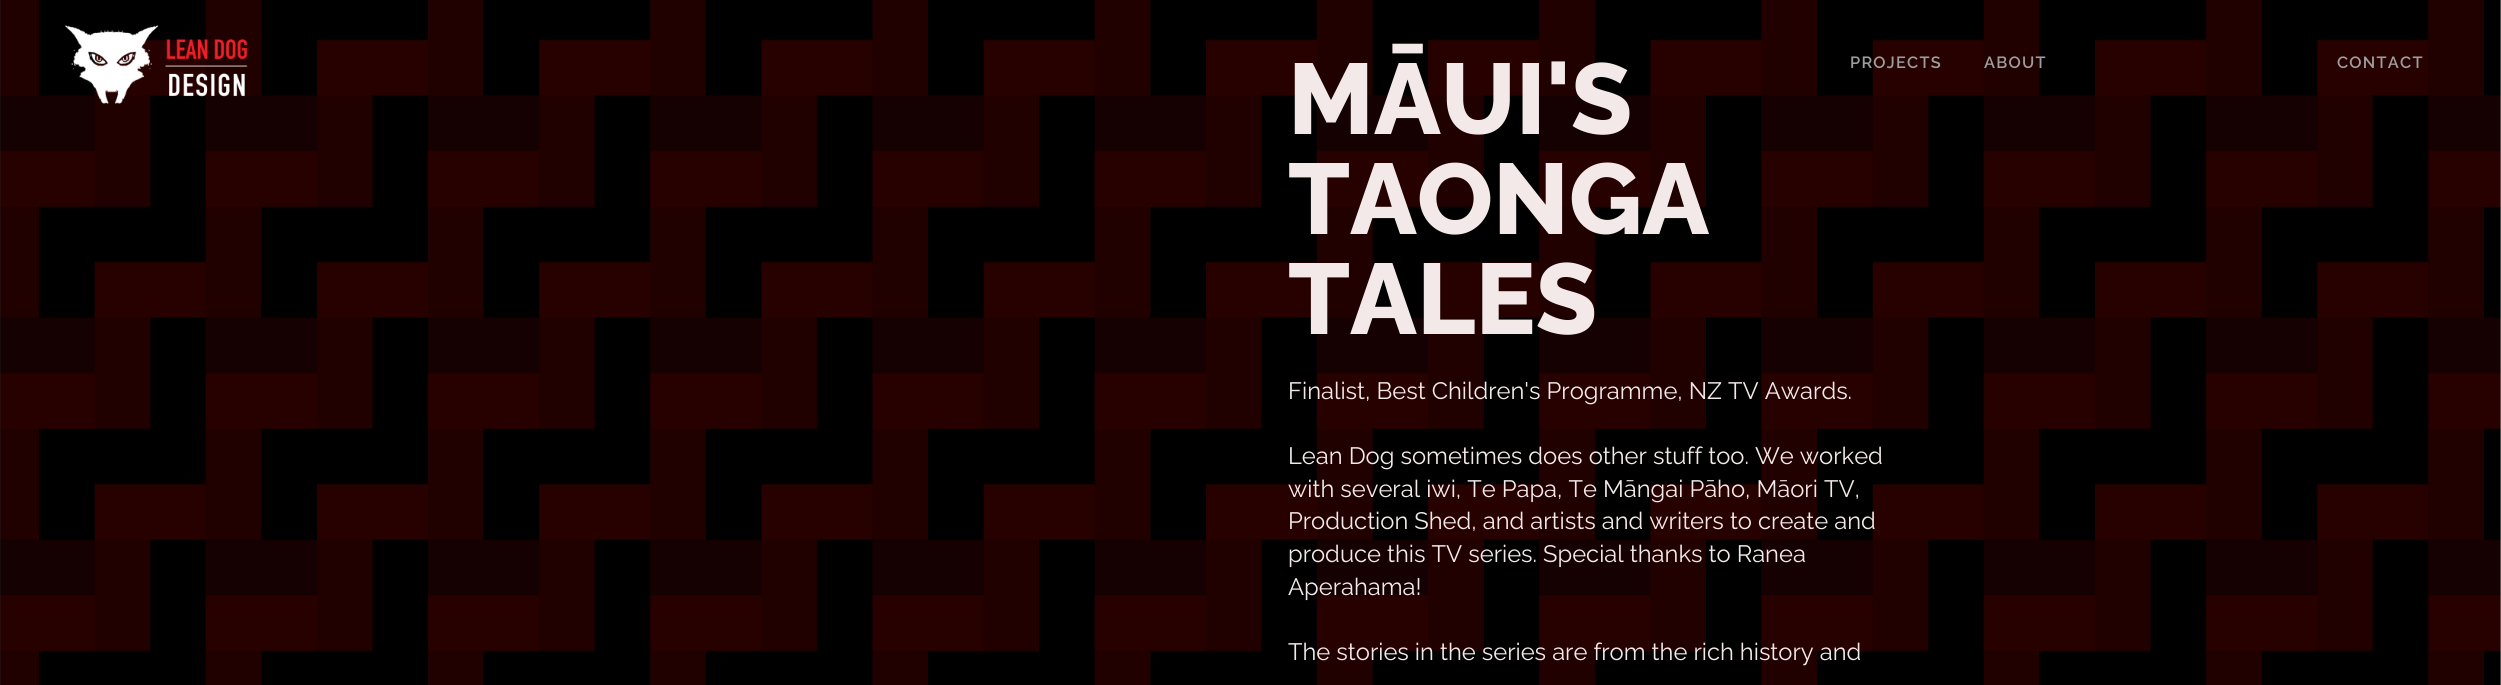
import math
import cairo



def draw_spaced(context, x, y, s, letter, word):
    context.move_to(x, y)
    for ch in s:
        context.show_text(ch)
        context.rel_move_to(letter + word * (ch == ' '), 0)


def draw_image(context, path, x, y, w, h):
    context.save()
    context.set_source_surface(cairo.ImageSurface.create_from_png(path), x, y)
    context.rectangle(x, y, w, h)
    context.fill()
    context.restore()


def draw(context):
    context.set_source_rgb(1, 1, 1)
    context.paint()
    draw_image(context, "images/1.png", 0, 0, 2501, 685)
    draw_image(context, "images/2.png", 65, 25, 183, 79)
    context.select_font_face("Raleway ExtraBold")
    context.set_font_size(100)
    context.set_source_rgb(243 / 255, 233 / 255, 233 / 255)
    context.move_to(1288, 134)
    context.show_text("MĀUI'S")
    context.move_to(1288, 234)
    context.show_text("TAONGA")
    context.move_to(1288, 334)
    context.show_text("TALES")
    context.select_font_face("Raleway")
    context.set_font_size(23.75)
    context.move_to(1288, 399)
    context.show_text("Finalist, Best Children's Programme, NZ TV Awards.")
    context.move_to(1288, 464)
    context.show_text("Lean Dog sometimes does other stuff too. We worked")
    context.move_to(1288, 497)
    context.show_text("with several iwi, Te Papa, Te Māngai Pāho, Māori TV,")
    context.move_to(1288, 529)
    context.show_text("Production Shed, and artists and writers to create and")
    context.move_to(1288, 562)
    context.show_text("produce this TV series. Special thanks to Ranea")
    context.move_to(1288, 595)
    context.show_text("Aperahama!")
    context.move_to(1288, 660)
    context.show_text("The stories in the series are from the rich history and")
    context.select_font_face("Raleway SemiBold")
    context.set_font_size(16.25)
    context.set_source_rgb(157 / 255, 157 / 255, 157 / 255)
    draw_spaced(context, 1850, 68, "PROJECTS", 1.25, 0)
    draw_spaced(context, 1984, 68, "ABOUT", 1.25, 0)
    draw_spaced(context, 2337, 68, "CONTACT", 1.25, 0)


surface = cairo.ImageSurface(cairo.Format.RGB24, 2501, 685)
context = cairo.Context(surface)
options = cairo.FontOptions()
options.set_hint_metrics(cairo.HintMetrics.OFF)
options.set_hint_style(cairo.HintStyle.NONE)
context.set_font_options(options)
context.set_miter_limit(4)
draw(context)
surface.write_to_png("out.png")
